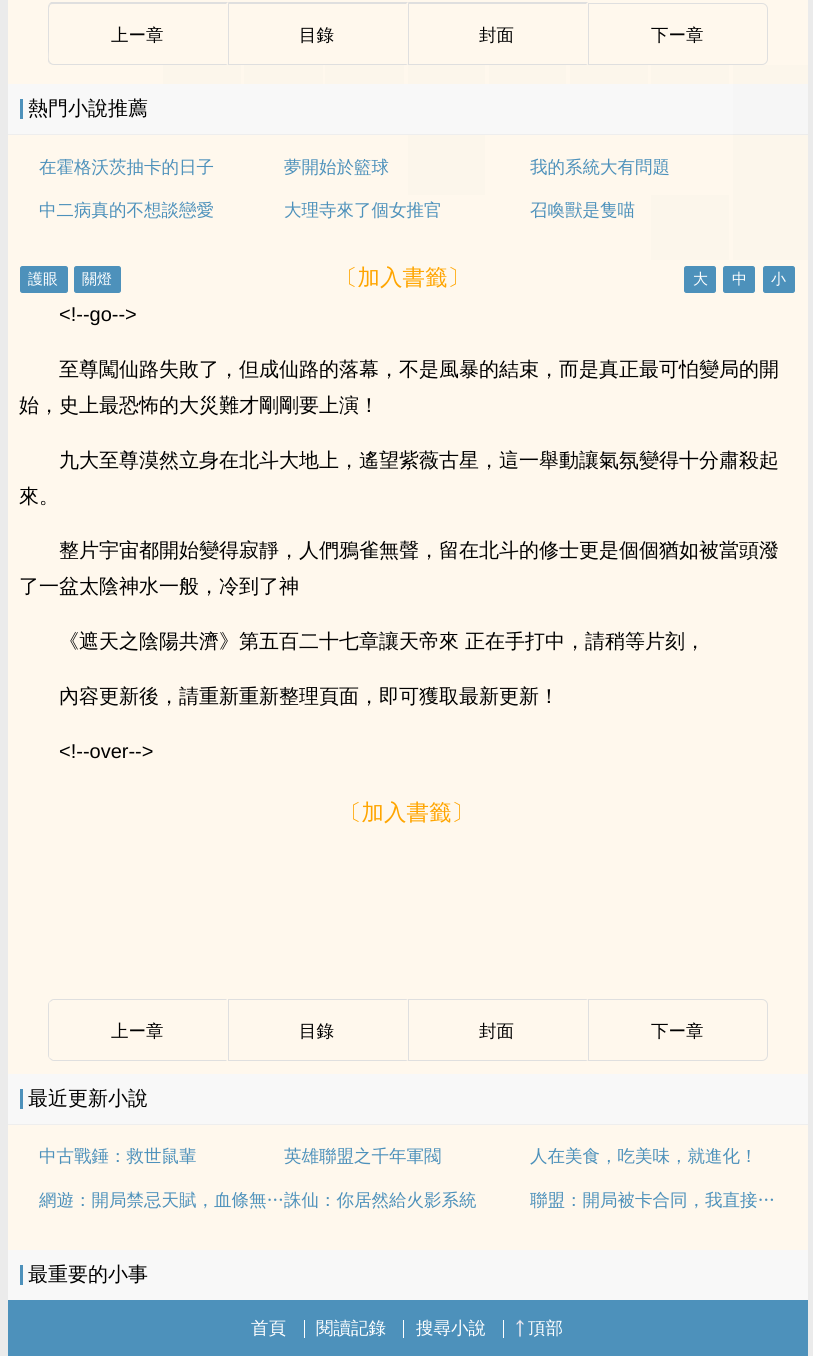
import math
import cairo



def rounded_rect(context, x, y, w, h, r):
    context.new_sub_path()
    for i, (u, v) in enumerate([(x + w - r, y + h - r), (x + r, y + h - r), (x + r, y + r), (x + w - r, y + r)]):
        context.arc(u, v, r, i * math.pi / 2, (i + 1) * math.pi / 2)
    context.close_path()


def draw_image(context, path, x, y, w, h):
    context.save()
    context.set_source_surface(cairo.ImageSurface.create_from_png(path), x, y)
    context.rectangle(x, y, w, h)
    context.fill()
    context.restore()


def draw(context):
    context.set_source_rgb(235 / 255, 235 / 255, 235 / 255)
    context.paint()
    context.set_source_rgb(1, 248 / 255, 237 / 255)
    context.rectangle(8, 0, 800, 1250)
    context.fill()
    context.set_source_rgb(252 / 255, 246 / 255, 235 / 255)
    context.rectangle(733, 135, 75, 125)
    context.fill()
    context.rectangle(408, 135, 77, 60)
    context.fill()
    context.rectangle(733, 65, 75, 19)
    context.fill()
    context.rectangle(651, 65, 78, 19)
    context.fill()
    context.rectangle(570, 65, 78, 19)
    context.fill()
    context.rectangle(489, 65, 77, 19)
    context.fill()
    context.rectangle(408, 65, 77, 19)
    context.fill()
    context.rectangle(325, 65, 79, 19)
    context.fill()
    context.rectangle(244, 65, 79, 19)
    context.fill()
    context.rectangle(163, 65, 78, 19)
    context.fill()
    context.set_source_rgb(223 / 255, 223 / 255, 223 / 255)
    context.new_path()
    context.move_to(54, 4)
    context.curve_to(52, 4, 51, 4, 50, 5)
    context.line_to(49, 4)
    context.line_to(51, 2)
    context.line_to(228, 2)
    context.line_to(226, 4)
    context.close_path()
    context.fill()
    context.new_path()
    context.move_to(228, 65)
    context.line_to(226, 64)
    context.line_to(54, 64)
    context.curve_to(52, 64, 51, 63, 50, 62)
    context.line_to(49, 63)
    context.curve_to(50, 64, 52, 65, 54, 65)
    context.close_path()
    context.fill()
    context.new_path()
    context.move_to(49, 63)
    context.curve_to(48, 62, 48, 60, 48, 59)
    context.line_to(48, 9)
    context.curve_to(48, 7, 48, 6, 49, 4)
    context.line_to(50, 5)
    context.line_to(49, 8)
    context.line_to(49, 51)
    context.curve_to(49, 52, 48, 60, 50, 62)
    context.close_path()
    context.fill()
    context.new_path()
    context.move_to(228, 2)
    context.line_to(408, 2)
    context.line_to(406, 4)
    context.line_to(229, 4)
    context.close_path()
    context.fill()
    context.new_path()
    context.move_to(408, 65)
    context.line_to(228, 65)
    context.line_to(229, 64)
    context.line_to(406, 64)
    context.close_path()
    context.fill()
    context.rectangle(228, 3, 1, 62)
    context.fill()
    context.new_path()
    context.move_to(408, 2)
    context.line_to(588, 2)
    context.line_to(586, 4)
    context.line_to(409, 4)
    context.close_path()
    context.fill()
    context.new_path()
    context.move_to(588, 65)
    context.line_to(408, 65)
    context.line_to(409, 64)
    context.line_to(586, 64)
    context.close_path()
    context.fill()
    context.rectangle(408, 3, 1, 62)
    context.fill()
    context.new_path()
    context.move_to(588.5, 3.5)
    context.line_to(762, 3.5)
    context.curve_to(765, 3.5, 767.5, 6, 767.5, 9)
    context.line_to(767.5, 59)
    context.curve_to(767.5, 62, 765, 64.5, 762, 64.5)
    context.line_to(588.5, 64.5)
    context.close_path()
    context.set_line_width(1)
    context.stroke()
    context.set_source_rgb(248 / 255, 248 / 255, 248 / 255)
    context.rectangle(8, 84, 725, 50)
    context.fill()
    context.set_source_rgb(246 / 255, 246 / 255, 246 / 255)
    context.rectangle(733, 84, 75, 50)
    context.fill()
    context.set_source_rgb(77 / 255, 145 / 255, 187 / 255)
    context.rectangle(20, 99, 3, 20)
    context.fill()
    context.set_source_rgb(238 / 255, 238 / 255, 238 / 255)
    context.rectangle(8, 134, 725, 1)
    context.fill()
    context.set_source_rgb(236 / 255, 236 / 255, 236 / 255)
    context.rectangle(733, 134, 75, 1)
    context.fill()
    context.set_source_rgb(77 / 255, 145 / 255, 187 / 255)
    rounded_rect(context, 20.5, 266.5, 47, 26, 2)
    context.fill_preserve()
    context.stroke()
    rounded_rect(context, 74.5, 266.5, 46, 26, 2)
    context.fill_preserve()
    context.stroke()
    rounded_rect(context, 684.5, 266.5, 31, 26, 2)
    context.fill_preserve()
    context.stroke()
    rounded_rect(context, 723.5, 266.5, 31, 26, 2)
    context.fill_preserve()
    context.stroke()
    rounded_rect(context, 763.5, 266.5, 31, 26, 2)
    context.fill_preserve()
    context.stroke()
    context.set_source_rgb(223 / 255, 223 / 255, 223 / 255)
    context.new_path()
    context.move_to(54, 999)
    context.curve_to(52, 999, 51, 1000, 50, 1001)
    context.line_to(50, 1002)
    context.line_to(53, 1000)
    context.line_to(226, 1000)
    context.line_to(227, 999)
    context.close_path()
    context.fill()
    context.new_path()
    context.move_to(227, 1061)
    context.line_to(54, 1061)
    context.curve_to(52, 1061, 51, 1060, 50, 1059)
    context.line_to(50, 1058)
    context.line_to(53, 1060)
    context.line_to(226, 1060)
    context.close_path()
    context.fill()
    context.new_path()
    context.move_to(50, 1001)
    context.curve_to(49, 1002, 48, 1003, 48, 1005)
    context.line_to(48, 1055)
    context.curve_to(48, 1057, 49, 1058, 50, 1059)
    context.line_to(50, 1058)
    context.curve_to(49, 1058, 49, 1056, 49, 1055)
    context.line_to(49, 1005)
    context.curve_to(49, 1004, 49, 1002, 50, 1002)
    context.close_path()
    context.fill()
    context.new_path()
    context.move_to(228, 999)
    context.line_to(408, 999)
    context.line_to(406, 1000)
    context.line_to(229, 1000)
    context.close_path()
    context.fill()
    context.new_path()
    context.move_to(408, 1061)
    context.line_to(228, 1061)
    context.line_to(229, 1060)
    context.line_to(406, 1060)
    context.close_path()
    context.fill()
    context.rectangle(228, 999, 1, 62)
    context.fill()
    context.new_path()
    context.move_to(408, 999)
    context.line_to(588, 999)
    context.line_to(586, 1000)
    context.line_to(409, 1000)
    context.close_path()
    context.fill()
    context.new_path()
    context.move_to(588, 1061)
    context.line_to(408, 1061)
    context.line_to(409, 1060)
    context.line_to(586, 1060)
    context.close_path()
    context.fill()
    context.rectangle(408, 999, 1, 62)
    context.fill()
    context.new_path()
    context.move_to(588.5, 999.5)
    context.line_to(762, 999.5)
    context.curve_to(765, 999.5, 767.5, 1002, 767.5, 1005)
    context.line_to(767.5, 1055)
    context.curve_to(767.5, 1058, 765, 1060.5, 762, 1060.5)
    context.line_to(588.5, 1060.5)
    context.close_path()
    context.stroke()
    context.set_source_rgb(248 / 255, 248 / 255, 248 / 255)
    context.rectangle(8, 1074, 800, 50)
    context.fill()
    context.set_source_rgb(77 / 255, 145 / 255, 187 / 255)
    context.rectangle(20, 1089, 3, 20)
    context.fill()
    context.set_source_rgb(238 / 255, 238 / 255, 238 / 255)
    context.rectangle(8, 1124, 800, 1)
    context.fill()
    context.set_source_rgb(248 / 255, 248 / 255, 248 / 255)
    context.rectangle(8, 1250, 800, 50)
    context.fill()
    context.set_source_rgb(77 / 255, 145 / 255, 187 / 255)
    context.rectangle(20, 1265, 3, 20)
    context.fill()
    context.rectangle(8, 1300, 800, 56)
    context.fill()
    context.set_source_rgb(1, 1, 1)
    context.rectangle(304, 1320, 1, 18)
    context.fill()
    context.rectangle(403, 1320, 1, 18)
    context.fill()
    context.rectangle(503, 1320, 1, 18)
    context.fill()
    draw_image(context, "images/1.png", 516, 1319, 8, 19)
    context.set_source_rgb(252 / 255, 246 / 255, 235 / 255)
    context.rectangle(651, 195, 78, 65)
    context.fill()
    context.select_font_face("WenQuanYi Zen Hei Medium")
    context.set_font_size(17.5)
    context.set_source_rgb(0, 0, 0)
    context.move_to(111, 41)
    context.show_text("上ー章")
    context.move_to(299, 41)
    context.show_text("目錄")
    context.move_to(479, 41)
    context.show_text("封面")
    context.move_to(651, 41)
    context.show_text("下ー章")
    context.set_font_size(20)
    context.move_to(28, 115)
    context.show_text("熱門小說推薦")
    context.set_font_size(17.5)
    context.set_source_rgb(77 / 255, 145 / 255, 187 / 255)
    context.move_to(39, 173)
    context.show_text("在霍格沃茨抽卡的日子")
    context.move_to(284, 173)
    context.show_text("夢開始於籃球")
    context.move_to(530, 173)
    context.show_text("我的系統大有問題")
    context.move_to(39, 216)
    context.show_text("中二病真的不想談戀愛")
    context.move_to(284, 216)
    context.show_text("大理寺來了個女推官")
    context.move_to(530, 216)
    context.show_text("召喚獸是隻喵")
    context.set_font_size(15)
    context.set_source_rgb(1, 1, 1)
    context.move_to(28, 284)
    context.show_text("護眼")
    context.move_to(82, 284)
    context.show_text("關燈")
    context.set_font_size(22.5)
    context.set_source_rgb(1, 165 / 255, 0)
    context.move_to(335, 285)
    context.show_text("〔加入書籤〕")
    context.set_font_size(15)
    context.set_source_rgb(1, 1, 1)
    context.move_to(693, 284)
    context.show_text("大")
    context.move_to(732, 284)
    context.show_text("中")
    context.move_to(771, 284)
    context.show_text("小")
    context.select_font_face("Liberation Sans")
    context.set_font_size(20)
    context.set_source_rgb(0, 0, 0)
    context.move_to(59, 321)
    context.show_text("<!--go-->")
    context.select_font_face("WenQuanYi Zen Hei Medium")
    context.move_to(59, 376)
    context.show_text("至尊闖仙路失敗了，但成仙路的落幕，不是風暴的結束，而是真正最可怕變局的開")
    context.move_to(19, 412)
    context.show_text("始，史上最恐怖的大災難才剛剛要上演！")
    context.move_to(59, 467)
    context.show_text("九大至尊漠然立身在北斗大地上，遙望紫薇古星，這一舉動讓氣氛變得十分肅殺起")
    context.move_to(19, 503)
    context.show_text("來。")
    context.move_to(59, 557)
    context.show_text("整片宇宙都開始變得寂靜，人們鴉雀無聲，留在北斗的修士更是個個猶如被當頭潑")
    context.move_to(19, 593)
    context.show_text("了一盆太陰神水一般，冷到了神")
    context.move_to(59, 648)
    context.show_text("《遮天之陰陽共濟》第五百二十七章讓天帝來 正在手打中，請稍等片刻，")
    context.move_to(59, 703)
    context.show_text("內容更新後，請重新重新整理頁面，即可獲取最新更新！")
    context.select_font_face("Liberation Sans")
    context.move_to(59, 758)
    context.show_text("<!--over-->")
    context.select_font_face("WenQuanYi Zen Hei Medium")
    context.set_font_size(22.5)
    context.set_source_rgb(1, 165 / 255, 0)
    context.move_to(339, 820)
    context.show_text("〔加入書籤〕")
    context.set_font_size(17.5)
    context.set_source_rgb(0, 0, 0)
    context.move_to(111, 1037)
    context.show_text("上ー章")
    context.move_to(299, 1037)
    context.show_text("目錄")
    context.move_to(479, 1037)
    context.show_text("封面")
    context.move_to(651, 1037)
    context.show_text("下ー章")
    context.set_font_size(20)
    context.move_to(28, 1105)
    context.show_text("最近更新小說")
    context.set_font_size(17.5)
    context.set_source_rgb(77 / 255, 145 / 255, 187 / 255)
    context.move_to(39, 1162)
    context.show_text("中古戰錘：救世鼠輩")
    context.move_to(284, 1162)
    context.show_text("英雄聯盟之千年軍閥")
    context.move_to(530, 1162)
    context.show_text("人在美食，吃美味，就進化！")
    context.move_to(39, 1206)
    context.show_text("網遊：開局禁忌天賦，血條無…")
    context.move_to(284, 1206)
    context.show_text("誅仙：你居然給火影系統")
    context.save()
    context.rectangle(530, 1181, 245, 38)
    context.clip()
    context.move_to(530, 1206)
    context.show_text("聯盟：開局被卡合同，我直接…")
    context.restore()
    context.set_font_size(20)
    context.set_source_rgb(0, 0, 0)
    context.move_to(28, 1281)
    context.show_text("最重要的小事")
    context.set_font_size(17.5)
    context.set_source_rgb(1, 1, 1)
    context.move_to(251, 1334)
    context.show_text("首頁")
    context.move_to(316, 1334)
    context.show_text("閱讀記錄")
    context.move_to(416, 1334)
    context.show_text("搜尋小說")
    context.move_to(528, 1334)
    context.show_text("頂部")


surface = cairo.ImageSurface(cairo.Format.RGB24, 813, 1356)
context = cairo.Context(surface)
options = cairo.FontOptions()
options.set_hint_metrics(cairo.HintMetrics.OFF)
options.set_hint_style(cairo.HintStyle.NONE)
context.set_font_options(options)
context.set_miter_limit(4)
draw(context)
surface.write_to_png("out.png")
